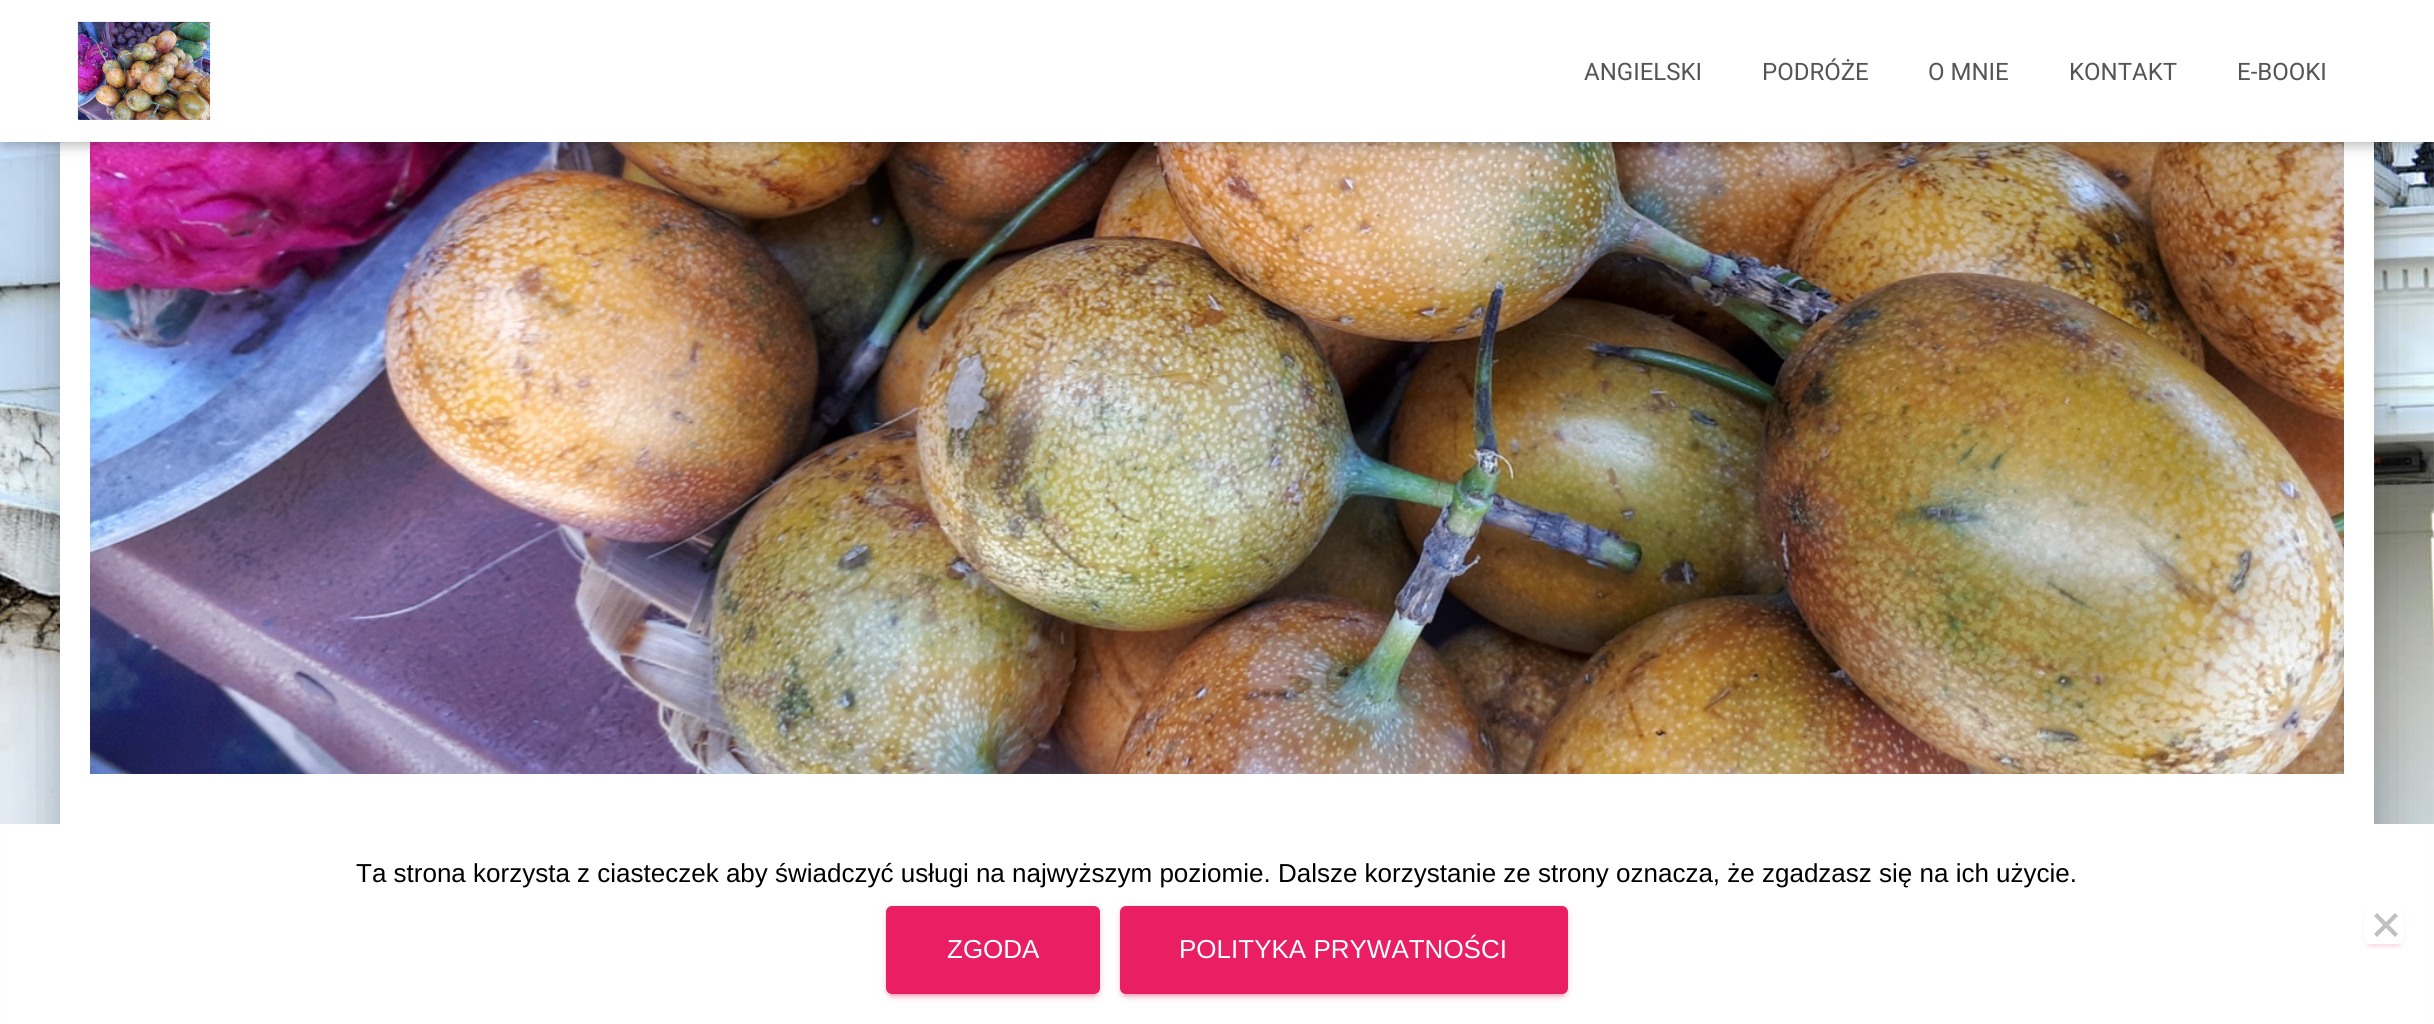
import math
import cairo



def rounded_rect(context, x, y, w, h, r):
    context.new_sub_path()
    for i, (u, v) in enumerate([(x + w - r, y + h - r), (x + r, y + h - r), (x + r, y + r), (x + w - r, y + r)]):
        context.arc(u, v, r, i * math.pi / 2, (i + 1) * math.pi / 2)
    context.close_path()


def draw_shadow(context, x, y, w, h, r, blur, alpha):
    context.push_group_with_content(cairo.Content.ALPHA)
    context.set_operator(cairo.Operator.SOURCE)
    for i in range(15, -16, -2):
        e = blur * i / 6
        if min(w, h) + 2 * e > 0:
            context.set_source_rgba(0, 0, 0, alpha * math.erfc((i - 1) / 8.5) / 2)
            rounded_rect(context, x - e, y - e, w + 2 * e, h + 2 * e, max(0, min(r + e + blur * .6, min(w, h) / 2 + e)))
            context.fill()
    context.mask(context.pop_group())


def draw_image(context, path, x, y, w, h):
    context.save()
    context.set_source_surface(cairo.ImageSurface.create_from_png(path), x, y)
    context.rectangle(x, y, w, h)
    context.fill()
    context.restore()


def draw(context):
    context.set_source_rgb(1, 1, 1)
    context.paint()
    draw_image(context, "images/1.png", 0, 142, 2434, 682)
    context.set_source_rgb(0, 0, 0)
    draw_shadow(context, 70, -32, 2294, 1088, 2, 10, 0.2)
    draw_shadow(context, 50, -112, 2334, 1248, 22, 30, 0.12)
    draw_shadow(context, 56, -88, 2322, 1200, 16, 24, 0.14)
    context.set_source_rgb(1, 1, 1)
    context.rectangle(60, 142, 2314, 682)
    context.fill()
    draw_image(context, "images/2.png", 90, 142, 2254, 632)
    context.set_source_rgb(0, 0, 0)
    draw_shadow(context, 4, 12, 2426, 134, 0, 5, 0.1)
    draw_shadow(context, 0, 2, 2434, 142, 0, 10, 0.12)
    draw_shadow(context, 12, 14, 2410, 118, 0, 10, 0.42)
    context.set_source_rgb(1, 1, 1)
    context.rectangle(0, 0, 2434, 142)
    context.fill()
    draw_image(context, "images/3.png", 77, 21, 134, 99)
    context.rectangle(4, 824, 2426, 200)
    context.fill()
    context.set_source_rgb(233 / 255, 30 / 255, 99 / 255)
    draw_shadow(context, 886, 908, 214, 88, 6, 5, 0.12)
    draw_shadow(context, 890, 916, 206, 80, 2, 1, 0.2)
    draw_shadow(context, 886, 910, 214, 88, 6, 2, 0.14)
    context.set_source_rgb(233 / 255, 30 / 255, 99 / 255)
    rounded_rect(context, 886, 906, 214, 88, 6)
    context.fill()
    context.set_source_rgb(233 / 255, 30 / 255, 99 / 255)
    draw_shadow(context, 1120, 908, 448, 88, 6, 5, 0.12)
    draw_shadow(context, 1124, 916, 440, 80, 2, 1, 0.2)
    draw_shadow(context, 1120, 910, 448, 88, 6, 2, 0.14)
    context.set_source_rgb(233 / 255, 30 / 255, 99 / 255)
    rounded_rect(context, 1120, 906, 448, 88, 6)
    context.fill()
    context.save()
    context.set_fill_rule(cairo.FillRule.EVEN_ODD)
    context.new_path()
    context.move_to(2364, 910)
    context.line_to(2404, 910)
    context.line_to(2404, 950)
    context.line_to(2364, 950)
    context.close_path()
    context.move_to(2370, 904)
    context.line_to(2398, 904)
    context.curve_to(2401.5, 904, 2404, 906.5, 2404, 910)
    context.line_to(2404, 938)
    context.curve_to(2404, 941.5, 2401.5, 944, 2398, 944)
    context.line_to(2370, 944)
    context.curve_to(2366.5, 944, 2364, 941.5, 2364, 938)
    context.line_to(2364, 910)
    context.curve_to(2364, 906.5, 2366.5, 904, 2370, 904)
    context.close_path()
    context.clip()
    context.set_source_rgb(244 / 255, 143 / 255, 177 / 255)
    draw_shadow(context, 2368, 914, 32, 32, 2, 1, 0.2)
    context.restore()
    context.save()
    context.set_fill_rule(cairo.FillRule.EVEN_ODD)
    context.new_path()
    context.move_to(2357, 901)
    context.line_to(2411, 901)
    context.line_to(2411, 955)
    context.line_to(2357, 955)
    context.close_path()
    context.move_to(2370, 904)
    context.line_to(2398, 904)
    context.curve_to(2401.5, 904, 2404, 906.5, 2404, 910)
    context.line_to(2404, 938)
    context.curve_to(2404, 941.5, 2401.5, 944, 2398, 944)
    context.line_to(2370, 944)
    context.curve_to(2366.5, 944, 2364, 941.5, 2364, 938)
    context.line_to(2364, 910)
    context.curve_to(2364, 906.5, 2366.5, 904, 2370, 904)
    context.close_path()
    context.clip()
    context.set_source_rgb(244 / 255, 143 / 255, 177 / 255)
    draw_shadow(context, 2364, 908, 40, 40, 6, 2, 0.14)
    context.restore()
    context.set_source_rgb(192 / 255, 192 / 255, 192 / 255)
    context.new_path()
    context.move_to(2395, 913)
    context.line_to(2398, 916)
    context.line_to(2377, 937)
    context.line_to(2374, 934)
    context.close_path()
    context.fill()
    context.new_path()
    context.move_to(2374, 916)
    context.line_to(2377, 913)
    context.line_to(2398, 934)
    context.line_to(2395, 937)
    context.close_path()
    context.fill()
    context.select_font_face("Roboto")
    context.set_font_size(24)
    context.set_source_rgb(85 / 255, 85 / 255, 85 / 255)
    context.move_to(1584, 80)
    context.show_text("ANGIELSKI")
    context.move_to(1762, 80)
    context.show_text("PODRÓŻE")
    context.move_to(1928, 80)
    context.show_text("O MNIE")
    context.move_to(2069, 80)
    context.show_text("KONTAKT")
    context.move_to(2237, 80)
    context.show_text("E-BOOKI")
    context.select_font_face("Liberation Sans")
    context.set_font_size(26)
    context.set_source_rgb(0, 0, 0)
    context.move_to(356, 882)
    context.show_text("Ta strona korzysta z ciasteczek aby świadczyć usługi na najwyższym poziomie. Dalsze korzystanie ze strony oznacza, że zgadzasz się na ich użycie.")
    context.set_source_rgb(1, 1, 1)
    context.move_to(947, 958)
    context.show_text("ZGODA")
    context.move_to(1179, 958)
    context.show_text("POLITYKA PRYWATNOŚCI")


surface = cairo.ImageSurface(cairo.Format.RGB24, 2434, 1024)
context = cairo.Context(surface)
options = cairo.FontOptions()
options.set_hint_metrics(cairo.HintMetrics.OFF)
options.set_hint_style(cairo.HintStyle.NONE)
context.set_font_options(options)
context.set_miter_limit(4)
draw(context)
surface.write_to_png("out.png")
